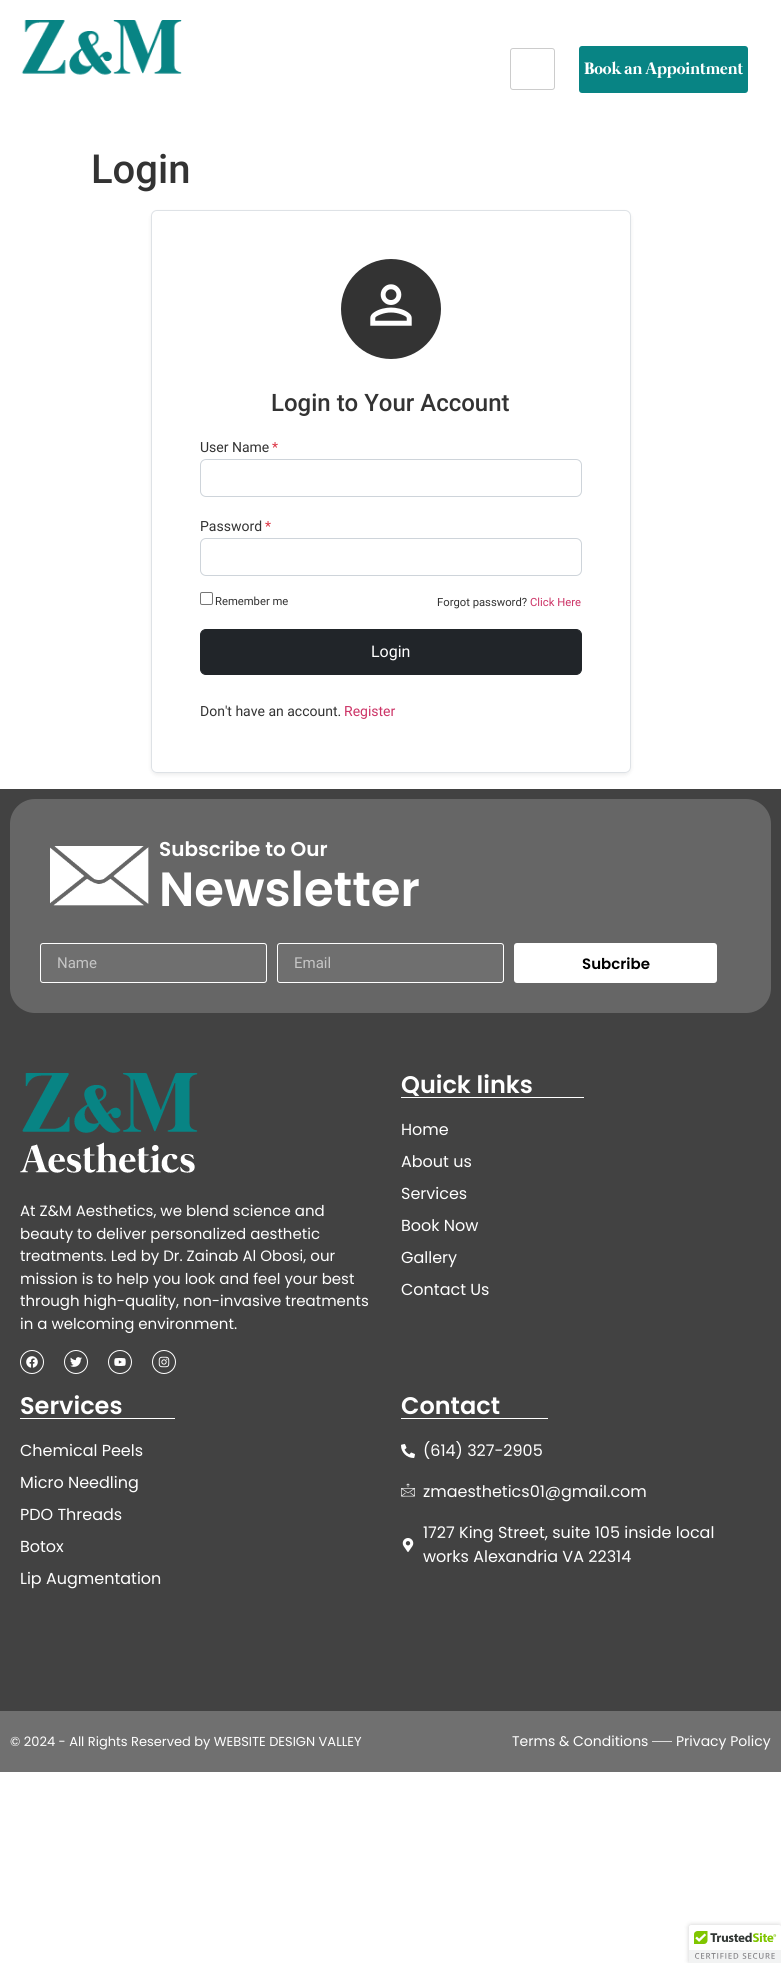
import math
import cairo



def rounded_rect(context, x, y, w, h, r):
    context.new_sub_path()
    for i, (u, v) in enumerate([(x + w - r, y + h - r), (x + r, y + h - r), (x + r, y + r), (x + w - r, y + r)]):
        context.arc(u, v, r, i * math.pi / 2, (i + 1) * math.pi / 2)
    context.close_path()


def draw_shadow(context, x, y, w, h, r, blur, alpha):
    context.push_group_with_content(cairo.Content.ALPHA)
    context.set_operator(cairo.Operator.SOURCE)
    for i in range(15, -16, -2):
        e = blur * i / 6
        if min(w, h) + 2 * e > 0:
            context.set_source_rgba(0, 0, 0, alpha * math.erfc((i - 1) / 8.5) / 2)
            rounded_rect(context, x - e, y - e, w + 2 * e, h + 2 * e, max(0, min(r + e + blur * .6, min(w, h) / 2 + e)))
            context.fill()
    context.mask(context.pop_group())


def draw_image(context, path, x, y, w, h):
    context.save()
    context.set_source_surface(cairo.ImageSurface.create_from_png(path), x, y)
    context.rectangle(x, y, w, h)
    context.fill()
    context.restore()


def draw(context):
    context.set_source_rgb(1, 1, 1)
    context.paint()
    draw_image(context, "images/1.png", 21, 20, 161, 55)
    rounded_rect(context, 510.5, 48.5, 44, 41, 2.5)
    context.set_source_rgb(204 / 255, 204 / 255, 204 / 255)
    context.set_line_width(1)
    context.stroke()
    context.set_source_rgb(8 / 255, 132 / 255, 132 / 255)
    rounded_rect(context, 579, 46, 169, 47, 3)
    context.fill()
    context.save()
    context.set_fill_rule(cairo.FillRule.EVEN_ODD)
    context.new_path()
    context.move_to(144, 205)
    context.line_to(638, 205)
    context.line_to(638, 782)
    context.line_to(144, 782)
    context.close_path()
    context.move_to(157, 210)
    context.line_to(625, 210)
    context.curve_to(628.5, 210, 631, 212.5, 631, 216)
    context.line_to(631, 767)
    context.curve_to(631, 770.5, 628.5, 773, 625, 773)
    context.line_to(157, 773)
    context.curve_to(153.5, 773, 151, 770.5, 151, 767)
    context.line_to(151, 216)
    context.curve_to(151, 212.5, 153.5, 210, 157, 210)
    context.close_path()
    context.clip()
    context.set_source_rgb(0, 0, 0)
    draw_shadow(context, 151, 212, 480, 563, 6, 2, 0.07)
    context.restore()
    rounded_rect(context, 151.5, 210.5, 479, 562, 5.5)
    context.set_source_rgb(222 / 255, 226 / 255, 230 / 255)
    context.stroke()
    context.set_source_rgb(51 / 255, 51 / 255, 51 / 255)
    context.arc(391, 309, 50, 0, 2 * math.pi)
    context.fill()
    draw_image(context, "images/2.png", 370, 284, 42, 42)
    rounded_rect(context, 200.5, 459.5, 381, 37, 5.5)
    context.set_source_rgb(206 / 255, 212 / 255, 218 / 255)
    context.stroke()
    rounded_rect(context, 200.5, 538.5, 381, 37, 5.5)
    context.stroke()
    rounded_rect(context, 200.5, 592.5, 12, 12, 1.5)
    context.set_source_rgb(118 / 255, 118 / 255, 118 / 255)
    context.stroke()
    context.set_source_rgb(33 / 255, 37 / 255, 41 / 255)
    rounded_rect(context, 200.5, 629.5, 381, 45, 5.5)
    context.fill_preserve()
    context.stroke()
    context.set_source_rgb(66 / 255, 66 / 255, 66 / 255)
    context.rectangle(0, 789, 781, 922)
    context.fill()
    context.set_source_rgb(102 / 255, 102 / 255, 102 / 255)
    rounded_rect(context, 10, 799, 761, 214, 25)
    context.fill()
    draw_image(context, "images/3.png", 50, 846, 99, 60)
    context.set_source_rgb(111 / 255, 111 / 255, 111 / 255)
    rounded_rect(context, 40.5, 943.5, 226, 39, 2.5)
    context.fill_preserve()
    context.set_source_rgb(1, 1, 1)
    context.stroke()
    context.set_source_rgb(111 / 255, 111 / 255, 111 / 255)
    rounded_rect(context, 277.5, 943.5, 226, 39, 2.5)
    context.fill_preserve()
    context.set_source_rgb(1, 1, 1)
    context.stroke()
    rounded_rect(context, 514, 943, 203, 40, 3)
    context.fill()
    draw_image(context, "images/4.png", 20, 1073, 178, 100)
    context.arc(32, 1362, 11.5, 0, 2 * math.pi)
    context.stroke()
    draw_image(context, "images/5.png", 26, 1356, 12, 12)
    context.arc(76, 1362, 11.5, 0, 2 * math.pi)
    context.stroke()
    draw_image(context, "images/6.png", 70, 1357, 12, 10)
    context.arc(120, 1362, 11.5, 0, 2 * math.pi)
    context.stroke()
    draw_image(context, "images/7.png", 114, 1358, 12, 8)
    context.arc(164, 1362, 11.5, 0, 2 * math.pi)
    context.stroke()
    draw_image(context, "images/8.png", 158, 1356, 12, 12)
    context.rectangle(401, 1097, 183, 1)
    context.fill()
    context.rectangle(20, 1418, 155, 1)
    context.fill()
    context.rectangle(401, 1418, 147, 1)
    context.fill()
    draw_image(context, "images/9.png", 401, 1444, 14, 14)
    draw_image(context, "images/10.png", 401, 1483, 14, 14)
    draw_image(context, "images/11.png", 402, 1538, 12, 14)
    context.set_source_rgb(112 / 255, 112 / 255, 112 / 255)
    context.rectangle(0, 1711, 781, 61)
    context.fill()
    context.set_source_rgb(221 / 255, 221 / 255, 221 / 255)
    context.rectangle(652, 1741, 20, 1)
    context.fill()
    context.set_source_rgb(0, 0, 0)
    draw_shadow(context, 689, 1925, 92, 38, 2, 2.5, 0.2)
    context.set_source_rgb(1, 1, 1)
    context.new_path()
    context.move_to(691, 1925)
    context.line_to(781, 1925)
    context.line_to(781, 1963)
    context.line_to(689, 1963)
    context.line_to(689, 1927)
    context.curve_to(689, 1926, 690, 1925, 691, 1925)
    context.close_path()
    context.fill()
    draw_image(context, "images/12.png", 689, 1925, 92, 38)
    context.select_font_face("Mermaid", cairo.FontSlant.NORMAL, cairo.FontWeight.BOLD)
    context.set_font_size(17)
    context.move_to(584, 74)
    context.show_text("Book an Appointment")
    context.select_font_face("Roboto Medium")
    context.set_font_size(40)
    context.set_source_rgb(51 / 255, 51 / 255, 51 / 255)
    context.move_to(91, 183)
    context.show_text("Login")
    context.set_font_size(24)
    context.move_to(271, 411)
    context.show_text("Login to Your Account")
    context.select_font_face("Roboto")
    context.set_font_size(14)
    context.move_to(200, 452)
    context.show_text("User Name")
    context.set_source_rgb(220 / 255, 53 / 255, 69 / 255)
    context.move_to(272, 452)
    context.show_text("*")
    context.set_source_rgb(51 / 255, 51 / 255, 51 / 255)
    context.move_to(200, 531)
    context.show_text("Password")
    context.set_source_rgb(220 / 255, 53 / 255, 69 / 255)
    context.move_to(265, 531)
    context.show_text("*")
    context.set_font_size(11.25)
    context.set_source_rgb(51 / 255, 51 / 255, 51 / 255)
    context.move_to(215, 605)
    context.show_text("Remember me")
    context.move_to(437, 606)
    context.show_text("Forgot password?")
    context.set_source_rgb(204 / 255, 51 / 255, 102 / 255)
    context.move_to(530, 606)
    context.show_text("Click Here")
    context.set_font_size(16)
    context.set_source_rgb(1, 1, 1)
    context.move_to(371, 657)
    context.show_text("Login")
    context.set_font_size(14)
    context.set_source_rgb(51 / 255, 51 / 255, 51 / 255)
    context.move_to(200, 716)
    context.show_text("Don't have an account.")
    context.set_source_rgb(204 / 255, 51 / 255, 102 / 255)
    context.move_to(344, 716)
    context.show_text("Register")
    context.select_font_face("Poppins SemiBold")
    context.set_font_size(20)
    context.set_source_rgb(1, 1, 1)
    context.move_to(159, 856)
    context.show_text("Subscribe to Our")
    context.set_font_size(48)
    context.move_to(159, 906)
    context.show_text("Newsletter")
    context.select_font_face("Roboto")
    context.set_font_size(15)
    context.set_source_rgb(197 / 255, 197 / 255, 197 / 255)
    context.move_to(57, 968)
    context.show_text("Name")
    context.move_to(294, 968)
    context.show_text("Email")
    context.select_font_face("Poppins SemiBold")
    context.set_source_rgb(0, 0, 0)
    context.move_to(582, 969)
    context.show_text("Subcribe")
    context.select_font_face("Poppins")
    context.set_source_rgb(1, 1, 1)
    context.move_to(20, 1216)
    context.show_text("At Z&M Aesthetics, we blend science and")
    context.move_to(20, 1239)
    context.show_text("beauty to deliver personalized aesthetic")
    context.move_to(20, 1261)
    context.show_text("treatments. Led by Dr. Zainab Al Obosi, our")
    context.move_to(20, 1284)
    context.show_text("mission is to help you look and feel your best")
    context.move_to(20, 1306)
    context.show_text("through high-quality, non-invasive treatments")
    context.move_to(20, 1329)
    context.show_text("in a welcoming environment.")
    context.select_font_face("Poppins SemiBold")
    context.set_font_size(24)
    context.move_to(401, 1093)
    context.show_text("Quick links")
    context.select_font_face("Poppins")
    context.set_font_size(16)
    context.move_to(401, 1135)
    context.show_text("Home")
    context.move_to(401, 1167)
    context.show_text("About us")
    context.move_to(401, 1199)
    context.show_text("Services")
    context.move_to(401, 1231)
    context.show_text("Book Now")
    context.move_to(401, 1263)
    context.show_text("Gallery")
    context.move_to(401, 1295)
    context.show_text("Contact Us")
    context.select_font_face("Poppins SemiBold")
    context.set_font_size(24)
    context.move_to(20, 1414)
    context.show_text("Services")
    context.select_font_face("Poppins")
    context.set_font_size(16)
    context.move_to(20, 1456)
    context.show_text("Chemical Peels")
    context.move_to(20, 1488)
    context.show_text("Micro Needling")
    context.move_to(20, 1520)
    context.show_text("PDO Threads")
    context.move_to(20, 1552)
    context.show_text("Botox")
    context.move_to(20, 1584)
    context.show_text("Lip Augmentation")
    context.select_font_face("Poppins SemiBold")
    context.set_font_size(24)
    context.move_to(401, 1414)
    context.show_text("Contact")
    context.select_font_face("Poppins")
    context.set_font_size(16)
    context.move_to(423, 1456)
    context.show_text("(614) 327-2905")
    context.move_to(423, 1497)
    context.show_text("zmaesthetics01@gmail.com")
    context.move_to(423, 1538)
    context.show_text("1727 King Street, suite 105 inside local")
    context.move_to(423, 1562)
    context.show_text("works Alexandria VA 22314")
    context.set_font_size(13)
    context.move_to(10, 1746)
    context.show_text("© 2024 - All Rights Reserved by WEBSITE DESIGN VALLEY")
    context.set_font_size(14)
    context.move_to(512, 1746)
    context.show_text("Terms & Conditions")
    context.move_to(676, 1746)
    context.show_text("Privacy Policy")


surface = cairo.ImageSurface(cairo.Format.RGB24, 781, 1963)
context = cairo.Context(surface)
options = cairo.FontOptions()
options.set_hint_metrics(cairo.HintMetrics.OFF)
options.set_hint_style(cairo.HintStyle.NONE)
context.set_font_options(options)
context.set_miter_limit(4)
draw(context)
surface.write_to_png("out.png")
